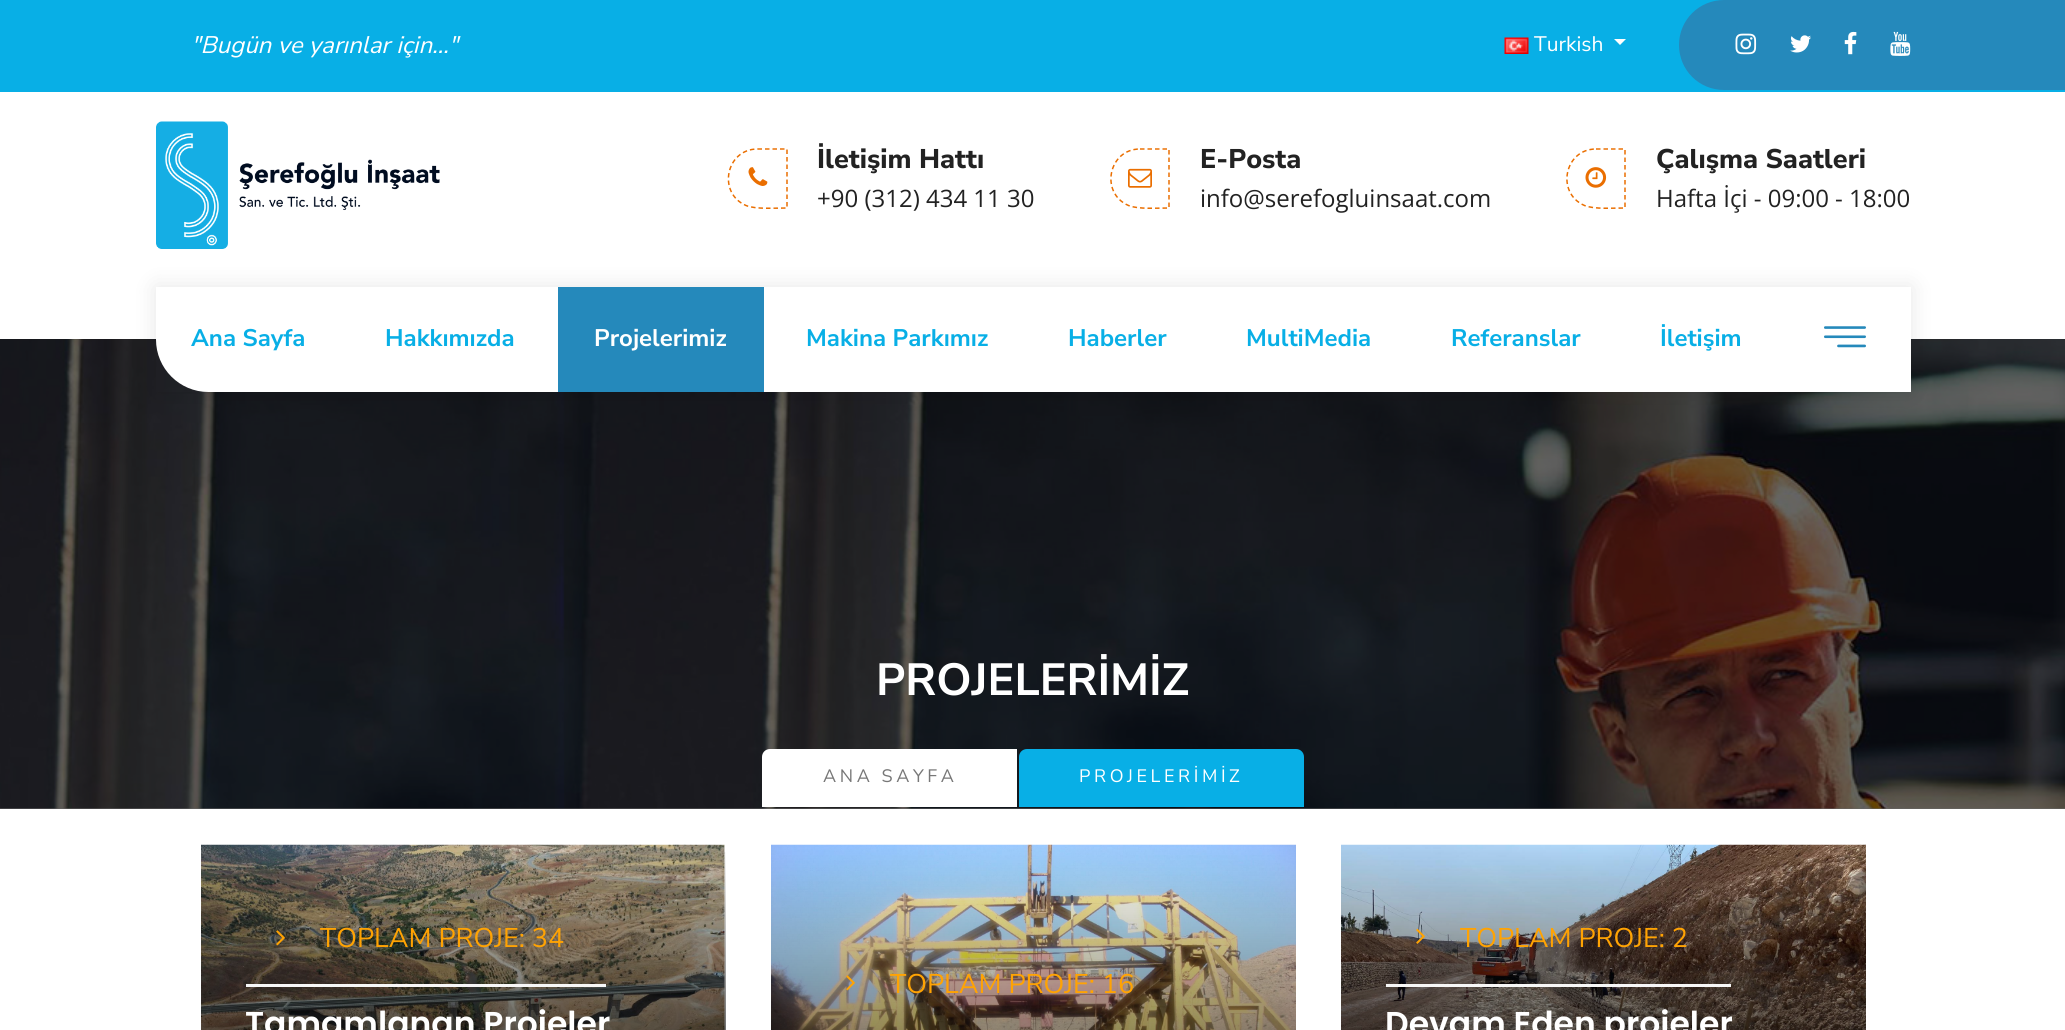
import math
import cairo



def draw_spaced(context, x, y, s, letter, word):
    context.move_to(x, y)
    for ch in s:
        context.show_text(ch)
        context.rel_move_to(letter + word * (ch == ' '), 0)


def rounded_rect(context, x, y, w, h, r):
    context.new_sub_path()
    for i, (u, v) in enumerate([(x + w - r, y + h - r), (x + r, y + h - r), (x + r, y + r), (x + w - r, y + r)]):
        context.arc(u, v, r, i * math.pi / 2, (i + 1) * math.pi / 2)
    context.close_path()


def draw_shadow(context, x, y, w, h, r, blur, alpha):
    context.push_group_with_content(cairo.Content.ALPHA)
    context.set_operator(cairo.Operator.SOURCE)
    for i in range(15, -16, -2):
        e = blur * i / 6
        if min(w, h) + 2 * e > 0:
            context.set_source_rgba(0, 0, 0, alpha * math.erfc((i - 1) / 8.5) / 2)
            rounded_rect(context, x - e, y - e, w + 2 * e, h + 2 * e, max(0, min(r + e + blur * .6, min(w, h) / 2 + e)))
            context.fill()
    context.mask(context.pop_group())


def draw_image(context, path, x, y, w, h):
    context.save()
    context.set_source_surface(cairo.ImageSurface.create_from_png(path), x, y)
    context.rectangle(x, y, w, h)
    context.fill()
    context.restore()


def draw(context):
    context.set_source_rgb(1, 1, 1)
    context.paint()
    context.set_source_rgb(102 / 255, 102 / 255, 102 / 255)
    context.rectangle(0, 808, 2065, 1)
    context.fill()
    context.set_source_rgb(8 / 255, 175 / 255, 230 / 255)
    context.rectangle(0, 0, 2065, 92)
    context.fill()
    draw_image(context, "images/1.png", 1504, 37, 25, 17)
    context.set_source_rgb(1, 1, 1)
    context.new_path()
    context.move_to(1614, 39)
    context.line_to(1626, 39)
    context.line_to(1620, 45)
    context.close_path()
    context.fill()
    context.set_source_rgb(37 / 255, 137 / 255, 187 / 255)
    context.new_path()
    context.move_to(1724, 0)
    context.line_to(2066, 0)
    context.line_to(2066, 90)
    context.line_to(1724, 90)
    context.curve_to(1699, 90, 1679, 70, 1679, 45)
    context.curve_to(1679, 20, 1699, 0, 1724, 0)
    context.close_path()
    context.fill()
    draw_image(context, "images/2.png", 1735, 33, 22, 22)
    draw_image(context, "images/3.png", 1790, 35, 21, 18)
    draw_image(context, "images/4.png", 1844, 31, 13, 24)
    draw_image(context, "images/5.png", 1890, 31, 21, 25)
    draw_image(context, "images/6.png", 156, 121, 284, 128)
    context.new_path()
    context.move_to(757.5, 149)
    context.line_to(787, 149)
    context.line_to(787, 208)
    context.curve_to(776, 208, 755.5, 209.5, 746, 205.5)
    context.curve_to(717, 193, 726, 149, 757.5, 149)
    context.close_path()
    context.set_source_rgb(234 / 255, 110 / 255, 0)
    context.set_line_width(1.5)
    context.set_dash([4.5, 3])
    context.stroke()
    draw_image(context, "images/7.png", 748, 167, 20, 19)
    context.new_path()
    context.move_to(1140, 149)
    context.line_to(1169, 149)
    context.line_to(1169, 208)
    context.curve_to(1158.5, 208, 1138, 209.5, 1128.5, 205.5)
    context.curve_to(1099.5, 193, 1108.5, 149, 1140, 149)
    context.close_path()
    context.stroke()
    draw_image(context, "images/8.png", 1128, 168, 24, 20)
    context.new_path()
    context.move_to(1596, 149)
    context.line_to(1625, 149)
    context.line_to(1625, 208)
    context.curve_to(1614.5, 208, 1594, 209.5, 1584.5, 205.5)
    context.curve_to(1555.5, 193, 1564.5, 149, 1596, 149)
    context.close_path()
    context.stroke()
    draw_image(context, "images/9.png", 1585, 167, 22, 21)
    draw_image(context, "images/11.png", 0, 339, 2065, 470)
    context.save()
    context.set_fill_rule(cairo.FillRule.EVEN_ODD)
    context.new_path()
    context.move_to(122, 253)
    context.line_to(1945, 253)
    context.line_to(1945, 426)
    context.line_to(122, 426)
    context.close_path()
    context.move_to(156, 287)
    context.line_to(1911, 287)
    context.line_to(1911, 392)
    context.line_to(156, 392)
    context.close_path()
    context.clip()
    context.set_source_rgb(0, 0, 0)
    draw_shadow(context, 156, 287, 1755, 105, 0, 11, 0.1)
    context.restore()
    context.set_source_rgb(1, 1, 1)
    context.new_path()
    context.move_to(208.5, 287)
    context.line_to(1911, 287)
    context.line_to(1911, 392)
    context.line_to(208.5, 392)
    context.curve_to(179.5, 392, 156, 368.5, 156, 339.5)
    context.curve_to(156, 310.5, 179.5, 287, 208.5, 287)
    context.close_path()
    context.fill()
    context.set_source_rgb(37 / 255, 137 / 255, 187 / 255)
    context.rectangle(558, 287, 206, 105)
    context.fill()
    draw_image(context, "images/10.png", 1824, 326, 42, 22)
    context.set_source_rgb(1, 1, 1)
    context.new_path()
    context.move_to(770, 749)
    context.line_to(1017, 749)
    context.line_to(1017, 807)
    context.line_to(762, 807)
    context.line_to(762, 757)
    context.curve_to(762, 752.5, 765.5, 749, 770, 749)
    context.close_path()
    context.fill()
    context.set_source_rgb(8 / 255, 175 / 255, 230 / 255)
    context.new_path()
    context.move_to(1027, 749)
    context.line_to(1296, 749)
    context.curve_to(1300.5, 749, 1304, 752.5, 1304, 757)
    context.line_to(1304, 807)
    context.line_to(1019, 807)
    context.line_to(1019, 757)
    context.curve_to(1019, 752.5, 1022.5, 749, 1027, 749)
    context.close_path()
    context.fill()
    draw_image(context, "images/12.png", 201, 844, 524, 186)
    gradient = cairo.LinearGradient(464, 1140, 464, 845)
    gradient.add_color_stop_rgba(0, 0, 0, 0, 0.89)
    gradient.add_color_stop_rgba(1, 0, 0, 0, 0)
    context.set_source(gradient)
    context.rectangle(201, 852, 525, 178)
    context.fill()
    context.set_source_rgb(247 / 255, 247 / 255, 247 / 255)
    context.rectangle(246, 984, 360, 3)
    context.fill()
    draw_image(context, "images/13.png", 276, 930, 9, 16)
    draw_image(context, "images/14.png", 771, 844, 525, 186)
    draw_image(context, "images/15.png", 846, 975, 9, 16)
    draw_image(context, "images/16.png", 1341, 844, 525, 186)
    context.rectangle(1386, 984, 345, 3)
    context.fill()
    draw_image(context, "images/17.png", 1416, 928, 9, 16)
    context.select_font_face("Nunito Sans", cairo.FontSlant.ITALIC)
    context.set_font_size(24)
    context.set_source_rgb(1, 1, 1)
    context.move_to(191, 53)
    context.show_text("\"Bugün ve yarınlar için...\"")
    context.select_font_face("Nunito Sans")
    context.set_font_size(21)
    context.move_to(1534, 51)
    context.show_text("Turkish")
    context.select_font_face("Nunito Sans ExtraBold")
    context.set_font_size(27)
    context.set_source_rgb(34 / 255, 34 / 255, 34 / 255)
    context.move_to(817, 168)
    context.show_text("İletişim Hattı")
    context.select_font_face("Open Sans")
    context.set_font_size(24)
    context.move_to(817, 207)
    context.show_text("+90 (312) 434 11 30")
    context.select_font_face("Nunito Sans ExtraBold")
    context.set_font_size(27)
    context.move_to(1200, 168)
    context.show_text("E-Posta")
    context.select_font_face("Open Sans")
    context.set_font_size(24)
    context.move_to(1200, 207)
    context.show_text("info@serefogluinsaat.com")
    context.select_font_face("Nunito Sans ExtraBold")
    context.set_font_size(27)
    context.move_to(1656, 168)
    context.show_text("Çalışma Saatleri")
    context.select_font_face("Open Sans")
    context.set_font_size(24)
    context.move_to(1656, 207)
    context.show_text("Hafta İçi - 09:00 - 18:00")
    context.select_font_face("Nunito Sans", cairo.FontSlant.NORMAL, cairo.FontWeight.BOLD)
    context.set_source_rgb(8 / 255, 175 / 255, 230 / 255)
    context.move_to(191, 346)
    context.show_text("Ana Sayfa")
    context.move_to(385, 346)
    context.show_text("Hakkımızda")
    context.set_source_rgb(1, 1, 1)
    context.move_to(594, 346)
    context.show_text("Projelerimiz")
    context.set_source_rgb(8 / 255, 175 / 255, 230 / 255)
    context.move_to(806, 346)
    context.show_text("Makina Parkımız")
    context.move_to(1068, 346)
    context.show_text("Haberler")
    context.move_to(1246, 346)
    context.show_text("MultiMedia")
    context.move_to(1451, 346)
    context.show_text("Referanslar")
    context.move_to(1660, 346)
    context.show_text("İletişim")
    context.set_font_size(45)
    context.set_source_rgb(1, 1, 1)
    context.move_to(876, 695)
    context.show_text("PROJELERİMİZ")
    context.select_font_face("Nunito Sans")
    context.set_font_size(18)
    context.set_source_rgb(119 / 255, 119 / 255, 119 / 255)
    draw_spaced(context, 823, 782, "ANA SAYFA", 3.6, 0)
    context.set_source_rgb(1, 1, 1)
    draw_spaced(context, 1079, 782, "PROJELERİMİZ", 3.6, 0)
    context.set_font_size(27)
    context.set_source_rgb(1, 163 / 255, 3 / 255)
    context.move_to(320, 947)
    context.show_text("TOPLAM PROJE: 34")
    context.select_font_face("Poppins SemiBold")
    context.set_font_size(33)
    context.set_source_rgb(1, 1, 1)
    context.move_to(245, 1035)
    context.show_text("Tamamlanan Projeler")
    context.select_font_face("Nunito Sans")
    context.set_font_size(27)
    context.set_source_rgb(1, 163 / 255, 3 / 255)
    context.move_to(890, 993)
    context.show_text("TOPLAM PROJE: 16")
    context.move_to(1460, 947)
    context.show_text("TOPLAM PROJE: 2")
    context.select_font_face("Poppins SemiBold")
    context.set_font_size(33)
    context.set_source_rgb(1, 1, 1)
    context.move_to(1385, 1035)
    context.show_text("Devam Eden projeler")


surface = cairo.ImageSurface(cairo.Format.RGB24, 2065, 1030)
context = cairo.Context(surface)
options = cairo.FontOptions()
options.set_hint_metrics(cairo.HintMetrics.OFF)
options.set_hint_style(cairo.HintStyle.NONE)
context.set_font_options(options)
context.set_miter_limit(4)
draw(context)
surface.write_to_png("out.png")
